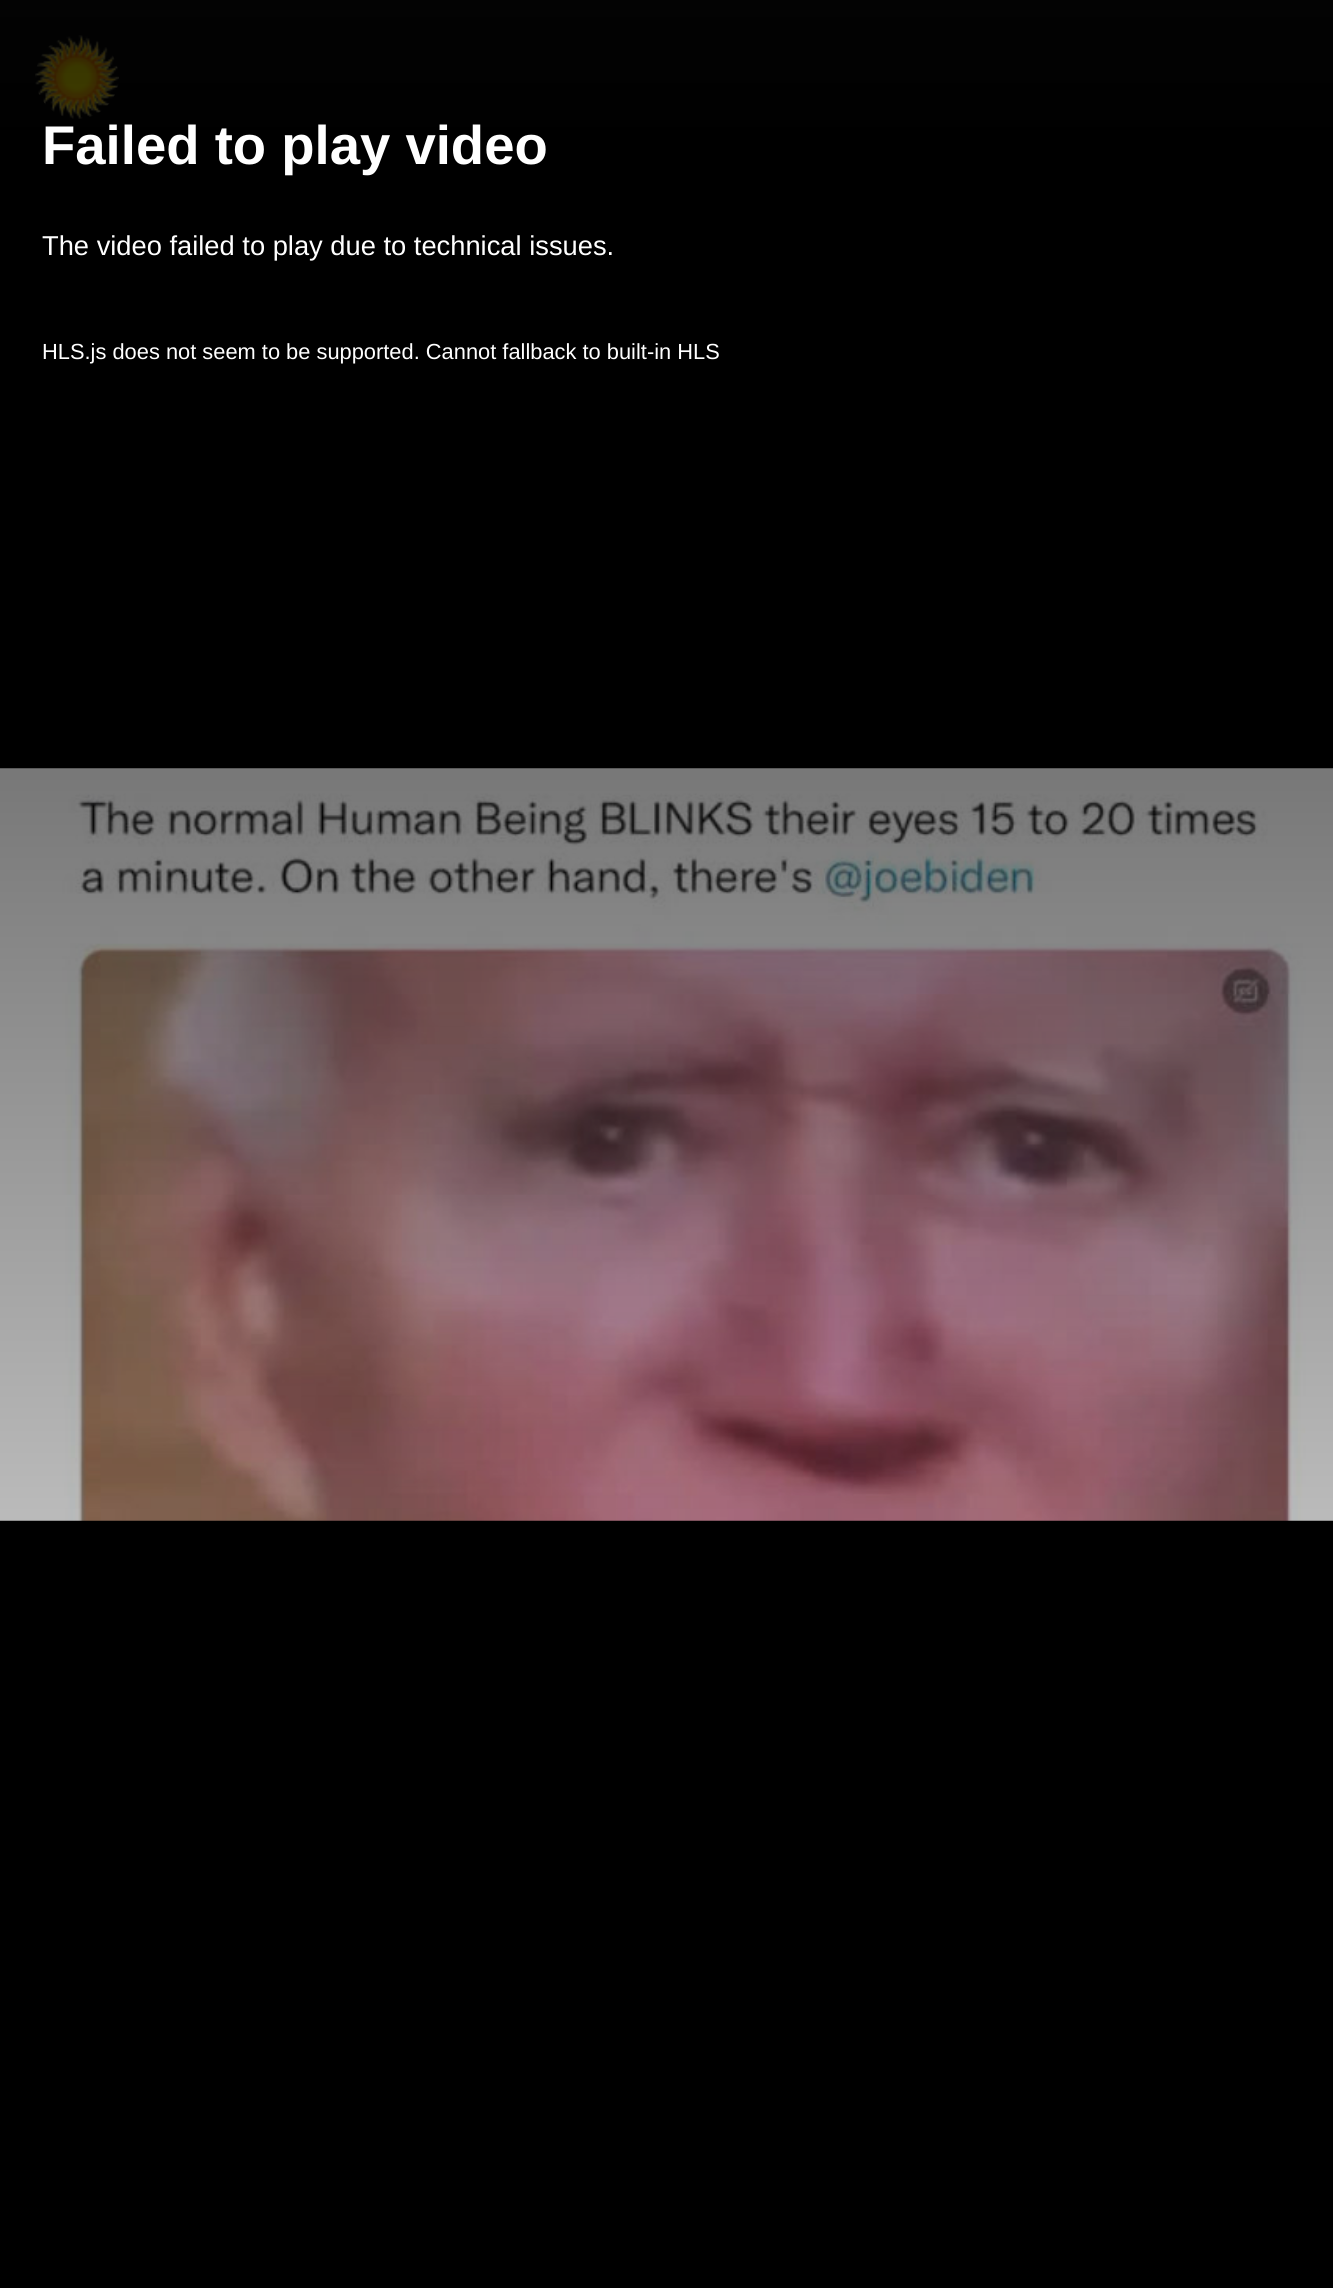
import math
import cairo



def draw_image(context, path, x, y, w, h):
    context.save()
    context.set_source_surface(cairo.ImageSurface.create_from_png(path), x, y)
    context.rectangle(x, y, w, h)
    context.fill()
    context.restore()


def draw(context):
    context.set_source_rgb(0, 0, 0)
    context.paint()
    gradient = cairo.LinearGradient(667, 0, 667, 154)
    gradient.add_color_stop_rgba(0, 14 / 255, 14 / 255, 14 / 255, 1)
    gradient.add_color_stop_rgba(1, 0, 0, 0, 1)
    context.set_source(gradient)
    context.rectangle(0, 0, 1333, 127)
    context.fill()
    draw_image(context, "images/1.png", 35, 35, 84, 84)
    draw_image(context, "images/2.png", 0, 768, 1333, 753)
    gradient = cairo.LinearGradient(667, 0, 667, 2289)
    gradient.add_color_stop_rgba(0, 0, 0, 0, 0.8)
    gradient.add_color_stop_rgba(1, 0, 0, 0, 0)
    context.set_source(gradient)
    context.rectangle(0, 0, 1333, 1521)
    context.fill()
    context.select_font_face("Liberation Sans", cairo.FontSlant.NORMAL, cairo.FontWeight.BOLD)
    context.set_font_size(54.5)
    context.set_source_rgb(1, 1, 1)
    context.move_to(42, 164)
    context.show_text("Failed to play video")
    context.select_font_face("Liberation Sans")
    context.set_font_size(27.3)
    context.move_to(42, 255)
    context.show_text("The video failed to play due to technical issues.")
    context.set_font_size(21.85)
    context.move_to(42, 359)
    context.show_text("HLS.js does not seem to be supported. Cannot fallback to built-in HLS")


surface = cairo.ImageSurface(cairo.Format.RGB24, 1333, 2288)
context = cairo.Context(surface)
options = cairo.FontOptions()
options.set_hint_metrics(cairo.HintMetrics.OFF)
options.set_hint_style(cairo.HintStyle.NONE)
context.set_font_options(options)
context.set_miter_limit(4)
draw(context)
surface.write_to_png("out.png")
